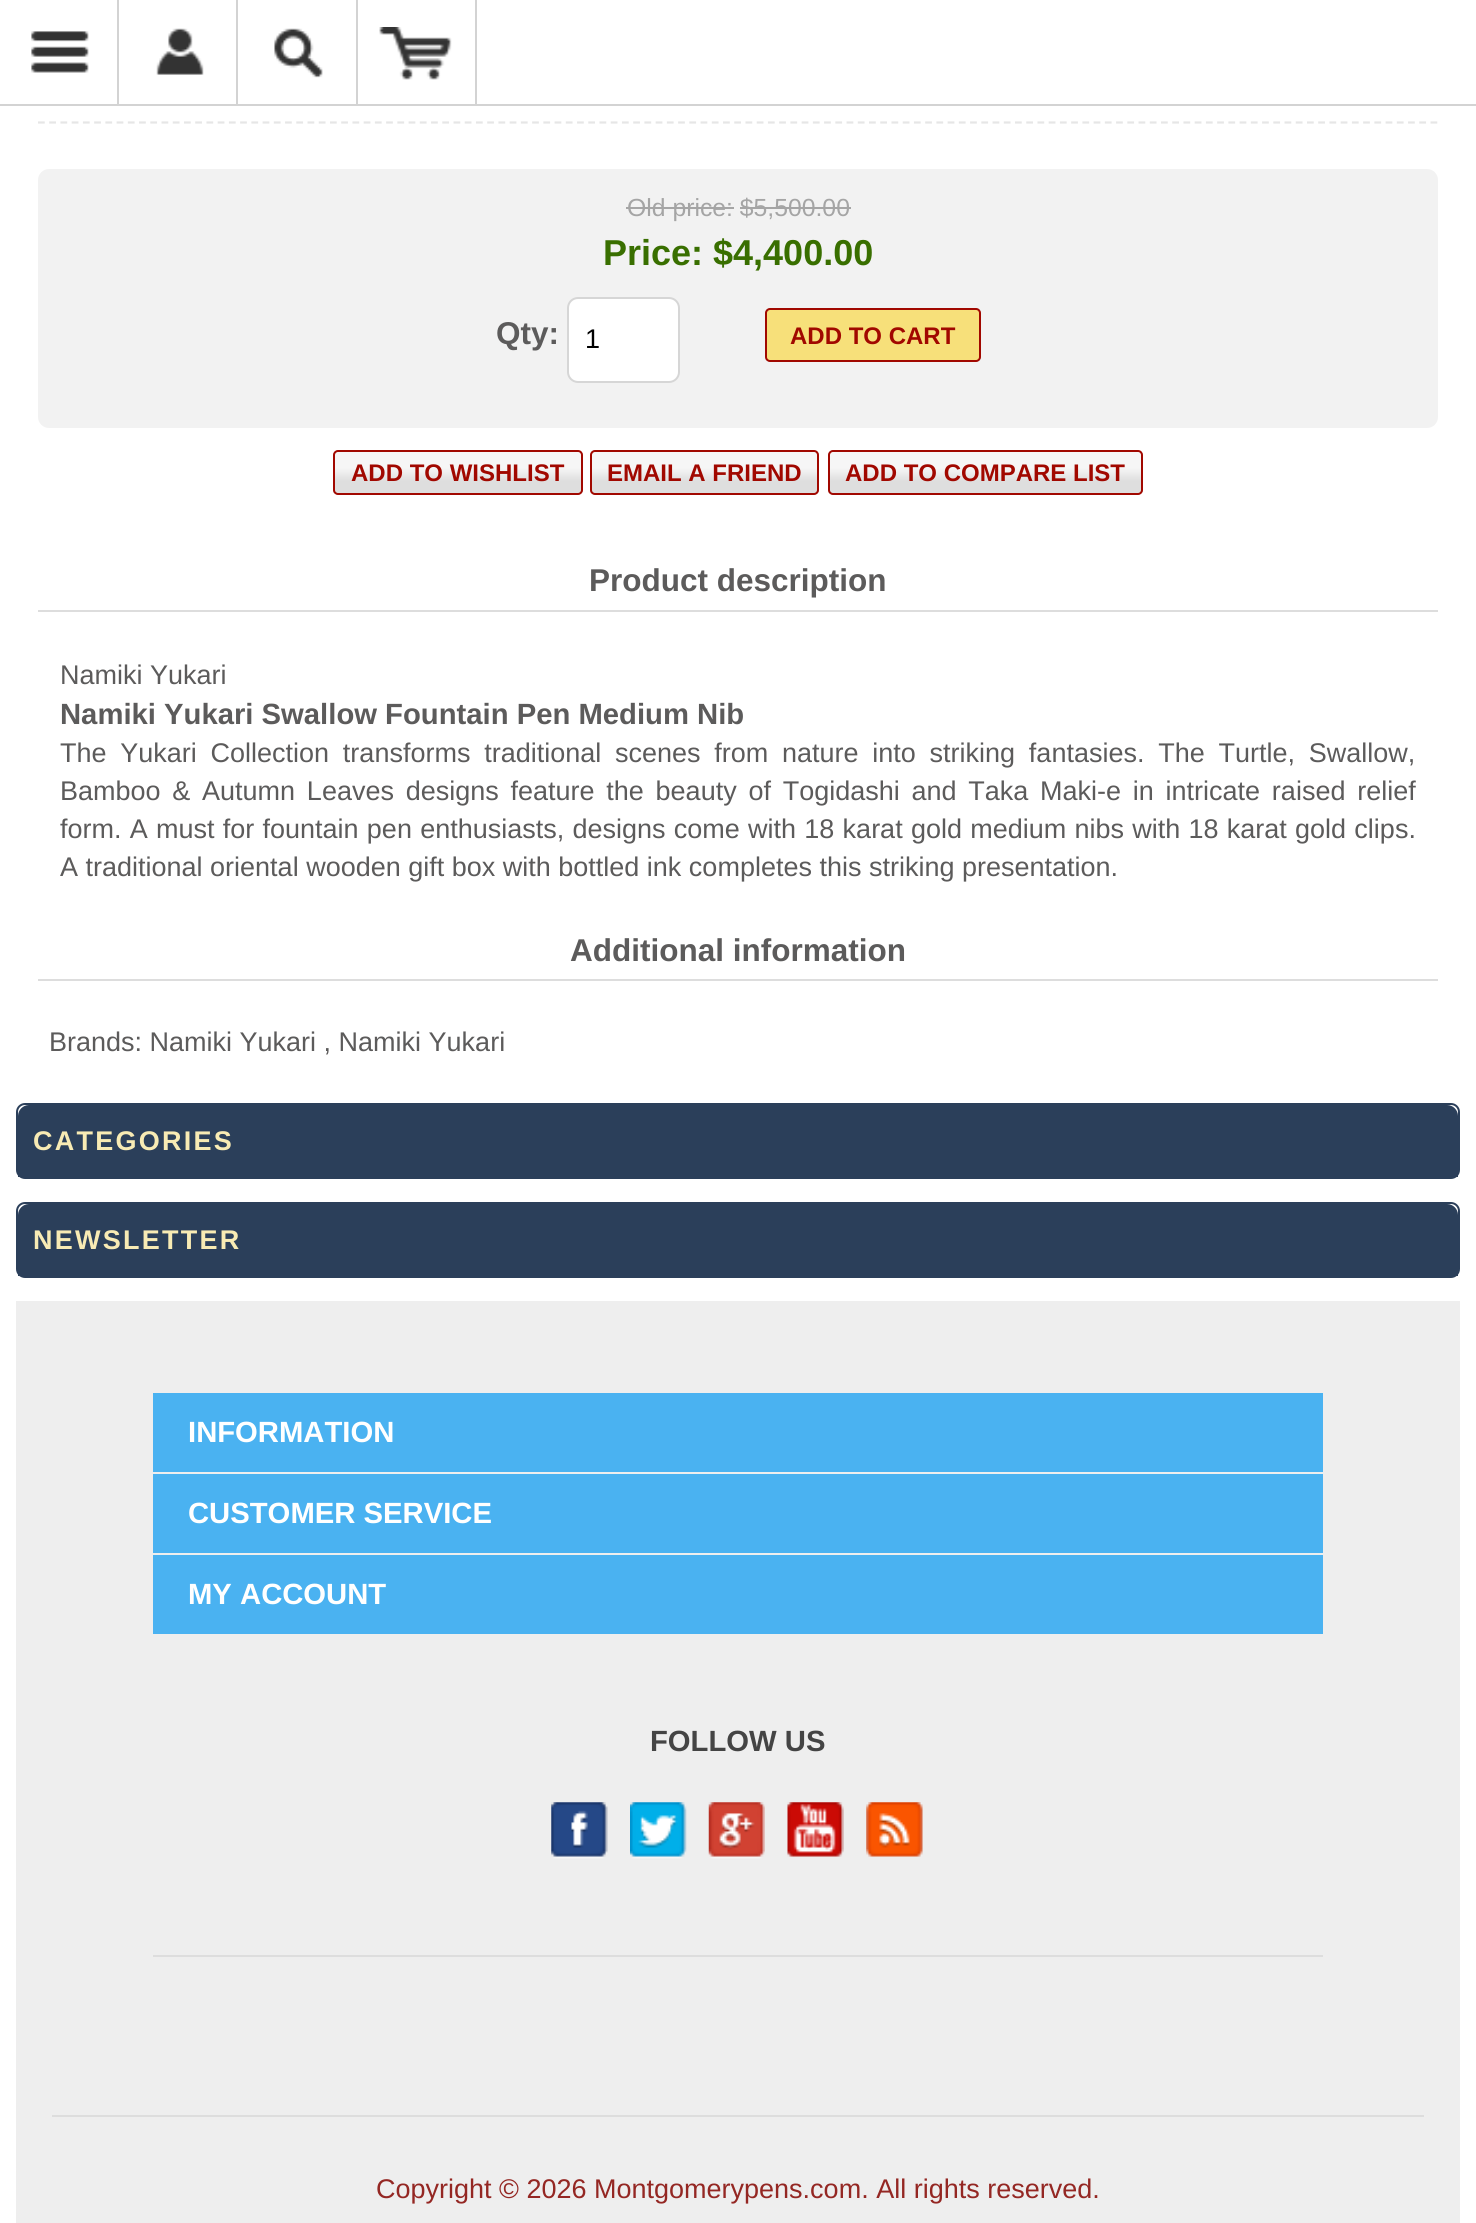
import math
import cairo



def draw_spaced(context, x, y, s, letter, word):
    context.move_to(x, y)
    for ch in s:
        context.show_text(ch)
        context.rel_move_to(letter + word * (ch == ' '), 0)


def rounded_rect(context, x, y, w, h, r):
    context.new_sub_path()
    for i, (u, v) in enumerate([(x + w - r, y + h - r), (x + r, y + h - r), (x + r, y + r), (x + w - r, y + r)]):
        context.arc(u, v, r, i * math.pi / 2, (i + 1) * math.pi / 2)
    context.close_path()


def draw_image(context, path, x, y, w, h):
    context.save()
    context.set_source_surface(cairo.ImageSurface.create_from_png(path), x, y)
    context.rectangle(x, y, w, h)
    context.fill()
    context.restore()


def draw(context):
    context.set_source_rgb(1, 1, 1)
    context.paint()
    context.set_source_rgb(211 / 255, 211 / 255, 211 / 255)
    context.rectangle(0, 104, 1476, 2)
    context.fill()
    context.rectangle(117, 0, 2, 104)
    context.fill()
    draw_image(context, "images/1.png", 31, 31, 58, 42)
    context.rectangle(236, 0, 2, 104)
    context.fill()
    draw_image(context, "images/2.png", 156, 28, 48, 47)
    context.rectangle(356, 0, 2, 104)
    context.fill()
    draw_image(context, "images/3.png", 274, 28, 49, 50)
    context.rectangle(475, 0, 2, 104)
    context.fill()
    draw_image(context, "images/4.png", 379, 27, 73, 53)
    context.new_path()
    context.move_to(38, 122.5)
    context.line_to(1438, 122.5)
    context.set_source_rgb(230 / 255, 230 / 255, 230 / 255)
    context.set_line_width(2.2)
    context.set_dash([6.75, 4.48])
    context.stroke()
    context.set_source_rgb(242 / 255, 242 / 255, 242 / 255)
    rounded_rect(context, 38, 169, 1400, 259, 11)
    context.fill()
    context.set_source_rgb(165 / 255, 165 / 255, 165 / 255)
    context.rectangle(626, 207, 108, 2)
    context.fill()
    context.rectangle(740, 207, 111, 2)
    context.fill()
    context.set_source_rgb(1, 1, 1)
    rounded_rect(context, 568, 298, 111, 84, 10)
    context.fill_preserve()
    context.set_source_rgb(214 / 255, 214 / 255, 214 / 255)
    context.set_line_width(2)
    context.set_dash([])
    context.stroke()
    context.set_source_rgb(247 / 255, 224 / 255, 122 / 255)
    rounded_rect(context, 766, 309, 214, 52, 4)
    context.fill_preserve()
    context.set_source_rgb(161 / 255, 8 / 255, 0)
    context.stroke()
    context.save()
    rounded_rect(context, 333, 450, 250, 45, 5)
    context.clip()
    gradient = cairo.LinearGradient(335, 468, 335, 481)
    gradient.add_color_stop_rgba(0, 246 / 255, 246 / 255, 246 / 255, 1)
    gradient.add_color_stop_rgba(1, 222 / 255, 222 / 255, 222 / 255, 1)
    context.set_source(gradient)
    context.rectangle(333, 452, 250, 41)
    context.fill()
    context.restore()
    rounded_rect(context, 334, 451, 248, 43, 4)
    context.stroke()
    context.save()
    rounded_rect(context, 590, 450, 229, 45, 5)
    context.clip()
    gradient = cairo.LinearGradient(592, 468, 592, 481)
    gradient.add_color_stop_rgba(0, 246 / 255, 246 / 255, 246 / 255, 1)
    gradient.add_color_stop_rgba(1, 222 / 255, 222 / 255, 222 / 255, 1)
    context.set_source(gradient)
    context.rectangle(590, 452, 229, 41)
    context.fill()
    context.restore()
    rounded_rect(context, 591, 451, 227, 43, 4)
    context.stroke()
    context.save()
    rounded_rect(context, 828, 450, 315, 45, 5)
    context.clip()
    gradient = cairo.LinearGradient(830, 468, 830, 481)
    gradient.add_color_stop_rgba(0, 246 / 255, 246 / 255, 246 / 255, 1)
    gradient.add_color_stop_rgba(1, 222 / 255, 222 / 255, 222 / 255, 1)
    context.set_source(gradient)
    context.rectangle(828, 452, 315, 41)
    context.fill()
    context.restore()
    rounded_rect(context, 829, 451, 313, 43, 4)
    context.stroke()
    context.set_source_rgb(221 / 255, 221 / 255, 221 / 255)
    context.rectangle(38, 610, 1400, 2)
    context.fill()
    context.rectangle(38, 979, 1400, 2)
    context.fill()
    rounded_rect(context, 17, 1104, 1442, 74, 8)
    context.set_source_rgb(43 / 255, 63 / 255, 90 / 255)
    context.stroke()
    context.new_path()
    context.move_to(29, 1105)
    context.line_to(1447, 1105)
    context.curve_to(1453, 1105, 1458, 1110, 1458, 1116)
    context.line_to(1458, 1177)
    context.line_to(18, 1177)
    context.line_to(18, 1116)
    context.curve_to(18, 1110, 23, 1105, 29, 1105)
    context.close_path()
    context.fill()
    rounded_rect(context, 17, 1203, 1442, 74, 8)
    context.stroke()
    context.new_path()
    context.move_to(29, 1204)
    context.line_to(1447, 1204)
    context.curve_to(1453, 1204, 1458, 1209, 1458, 1215)
    context.line_to(1458, 1276)
    context.line_to(18, 1276)
    context.line_to(18, 1215)
    context.curve_to(18, 1209, 23, 1204, 29, 1204)
    context.close_path()
    context.fill()
    context.set_source_rgb(238 / 255, 238 / 255, 238 / 255)
    context.rectangle(16, 1301, 1444, 922)
    context.fill()
    context.set_source_rgb(221 / 255, 221 / 255, 221 / 255)
    context.rectangle(52, 2115, 1372, 2)
    context.fill()
    context.set_source_rgb(74 / 255, 178 / 255, 241 / 255)
    context.rectangle(153, 1393, 1170, 79)
    context.fill()
    context.rectangle(153, 1474, 1170, 79)
    context.fill()
    context.rectangle(153, 1555, 1170, 79)
    context.fill()
    context.set_source_rgb(221 / 255, 221 / 255, 221 / 255)
    context.rectangle(153, 1955, 1170, 2)
    context.fill()
    draw_image(context, "images/5.png", 551, 1802, 57, 57)
    draw_image(context, "images/6.png", 630, 1802, 57, 57)
    draw_image(context, "images/7.png", 708, 1802, 57, 57)
    draw_image(context, "images/8.png", 787, 1802, 57, 55)
    draw_image(context, "images/9.png", 866, 1802, 57, 55)
    context.select_font_face("Liberation Sans")
    context.set_font_size(24.75)
    context.set_source_rgb(165 / 255, 165 / 255, 165 / 255)
    context.move_to(627, 216)
    context.show_text("Old price: $5,500.00")
    context.select_font_face("Liberation Sans", cairo.FontSlant.NORMAL, cairo.FontWeight.BOLD)
    context.set_font_size(36)
    context.set_source_rgb(57 / 255, 111 / 255, 0)
    context.move_to(603, 265)
    context.show_text("Price: $4,400.00")
    context.set_font_size(31.5)
    context.set_source_rgb(92 / 255, 91 / 255, 91 / 255)
    context.move_to(496, 344)
    context.show_text("Qty:")
    context.select_font_face("Liberation Sans")
    context.set_font_size(27)
    context.set_source_rgb(0, 0, 0)
    context.move_to(585, 348)
    context.show_text("1")
    context.select_font_face("Liberation Sans", cairo.FontSlant.NORMAL, cairo.FontWeight.BOLD)
    context.set_font_size(24)
    context.set_source_rgb(161 / 255, 8 / 255, 0)
    context.move_to(790, 344)
    context.show_text("ADD TO CART")
    context.move_to(351, 481)
    context.show_text("ADD TO WISHLIST")
    context.move_to(607, 481)
    context.show_text("EMAIL A FRIEND")
    context.move_to(845, 481)
    context.show_text("ADD TO COMPARE LIST")
    context.set_font_size(31.5)
    context.set_source_rgb(92 / 255, 91 / 255, 91 / 255)
    context.move_to(589, 591)
    context.show_text("Product description")
    context.select_font_face("Liberation Sans")
    context.set_font_size(27)
    context.move_to(60, 684)
    context.show_text("Namiki Yukari")
    context.select_font_face("Liberation Sans", cairo.FontSlant.NORMAL, cairo.FontWeight.BOLD)
    context.set_font_size(29.25)
    context.move_to(60, 724)
    context.show_text("Namiki Yukari Swallow Fountain Pen Medium Nib")
    context.select_font_face("Liberation Sans")
    context.set_font_size(27)
    draw_spaced(context, 60, 762, "The Yukari Collection transforms traditional scenes from nature into striking fantasies. The Turtle, Swallow,", 0, 6.25)
    draw_spaced(context, 60, 800, "Bamboo & Autumn Leaves designs feature the beauty of Togidashi and Taka Maki-e in intricate raised relief", 0, 4.25)
    draw_spaced(context, 60, 838, "form. A must for fountain pen enthusiasts, designs come with 18 karat gold medium nibs with 18 karat gold clips.", 0, 0.75)
    context.move_to(60, 876)
    context.show_text("A traditional oriental wooden gift box with bottled ink completes this striking presentation.")
    context.select_font_face("Liberation Sans", cairo.FontSlant.NORMAL, cairo.FontWeight.BOLD)
    context.set_font_size(31.5)
    context.move_to(570, 961)
    context.show_text("Additional information")
    context.select_font_face("Liberation Sans")
    context.set_font_size(27)
    context.move_to(49, 1051)
    context.show_text("Brands: Namiki Yukari , Namiki Yukari")
    context.select_font_face("Liberation Sans", cairo.FontSlant.NORMAL, cairo.FontWeight.BOLD)
    context.set_source_rgb(248 / 255, 235 / 255, 180 / 255)
    draw_spaced(context, 33, 1150, "CATEGORIES", 2.25, 0)
    draw_spaced(context, 33, 1249, "NEWSLETTER", 2.25, 0)
    context.set_font_size(29.25)
    context.set_source_rgb(1, 1, 1)
    context.move_to(188, 1442)
    context.show_text("INFORMATION")
    context.move_to(188, 1523)
    context.show_text("CUSTOMER SERVICE")
    context.move_to(188, 1604)
    context.show_text("MY ACCOUNT")
    context.set_source_rgb(68 / 255, 68 / 255, 68 / 255)
    context.move_to(650, 1751)
    context.show_text("FOLLOW US")
    context.select_font_face("Liberation Sans")
    context.set_font_size(27)
    context.set_source_rgb(148 / 255, 39 / 255, 35 / 255)
    context.move_to(376, 2198)
    context.show_text("Copyright © 2026 Montgomerypens.com. All rights reserved.")


surface = cairo.ImageSurface(cairo.Format.RGB24, 1476, 2223)
context = cairo.Context(surface)
options = cairo.FontOptions()
options.set_hint_metrics(cairo.HintMetrics.OFF)
options.set_hint_style(cairo.HintStyle.NONE)
context.set_font_options(options)
context.set_miter_limit(4)
draw(context)
surface.write_to_png("out.png")
